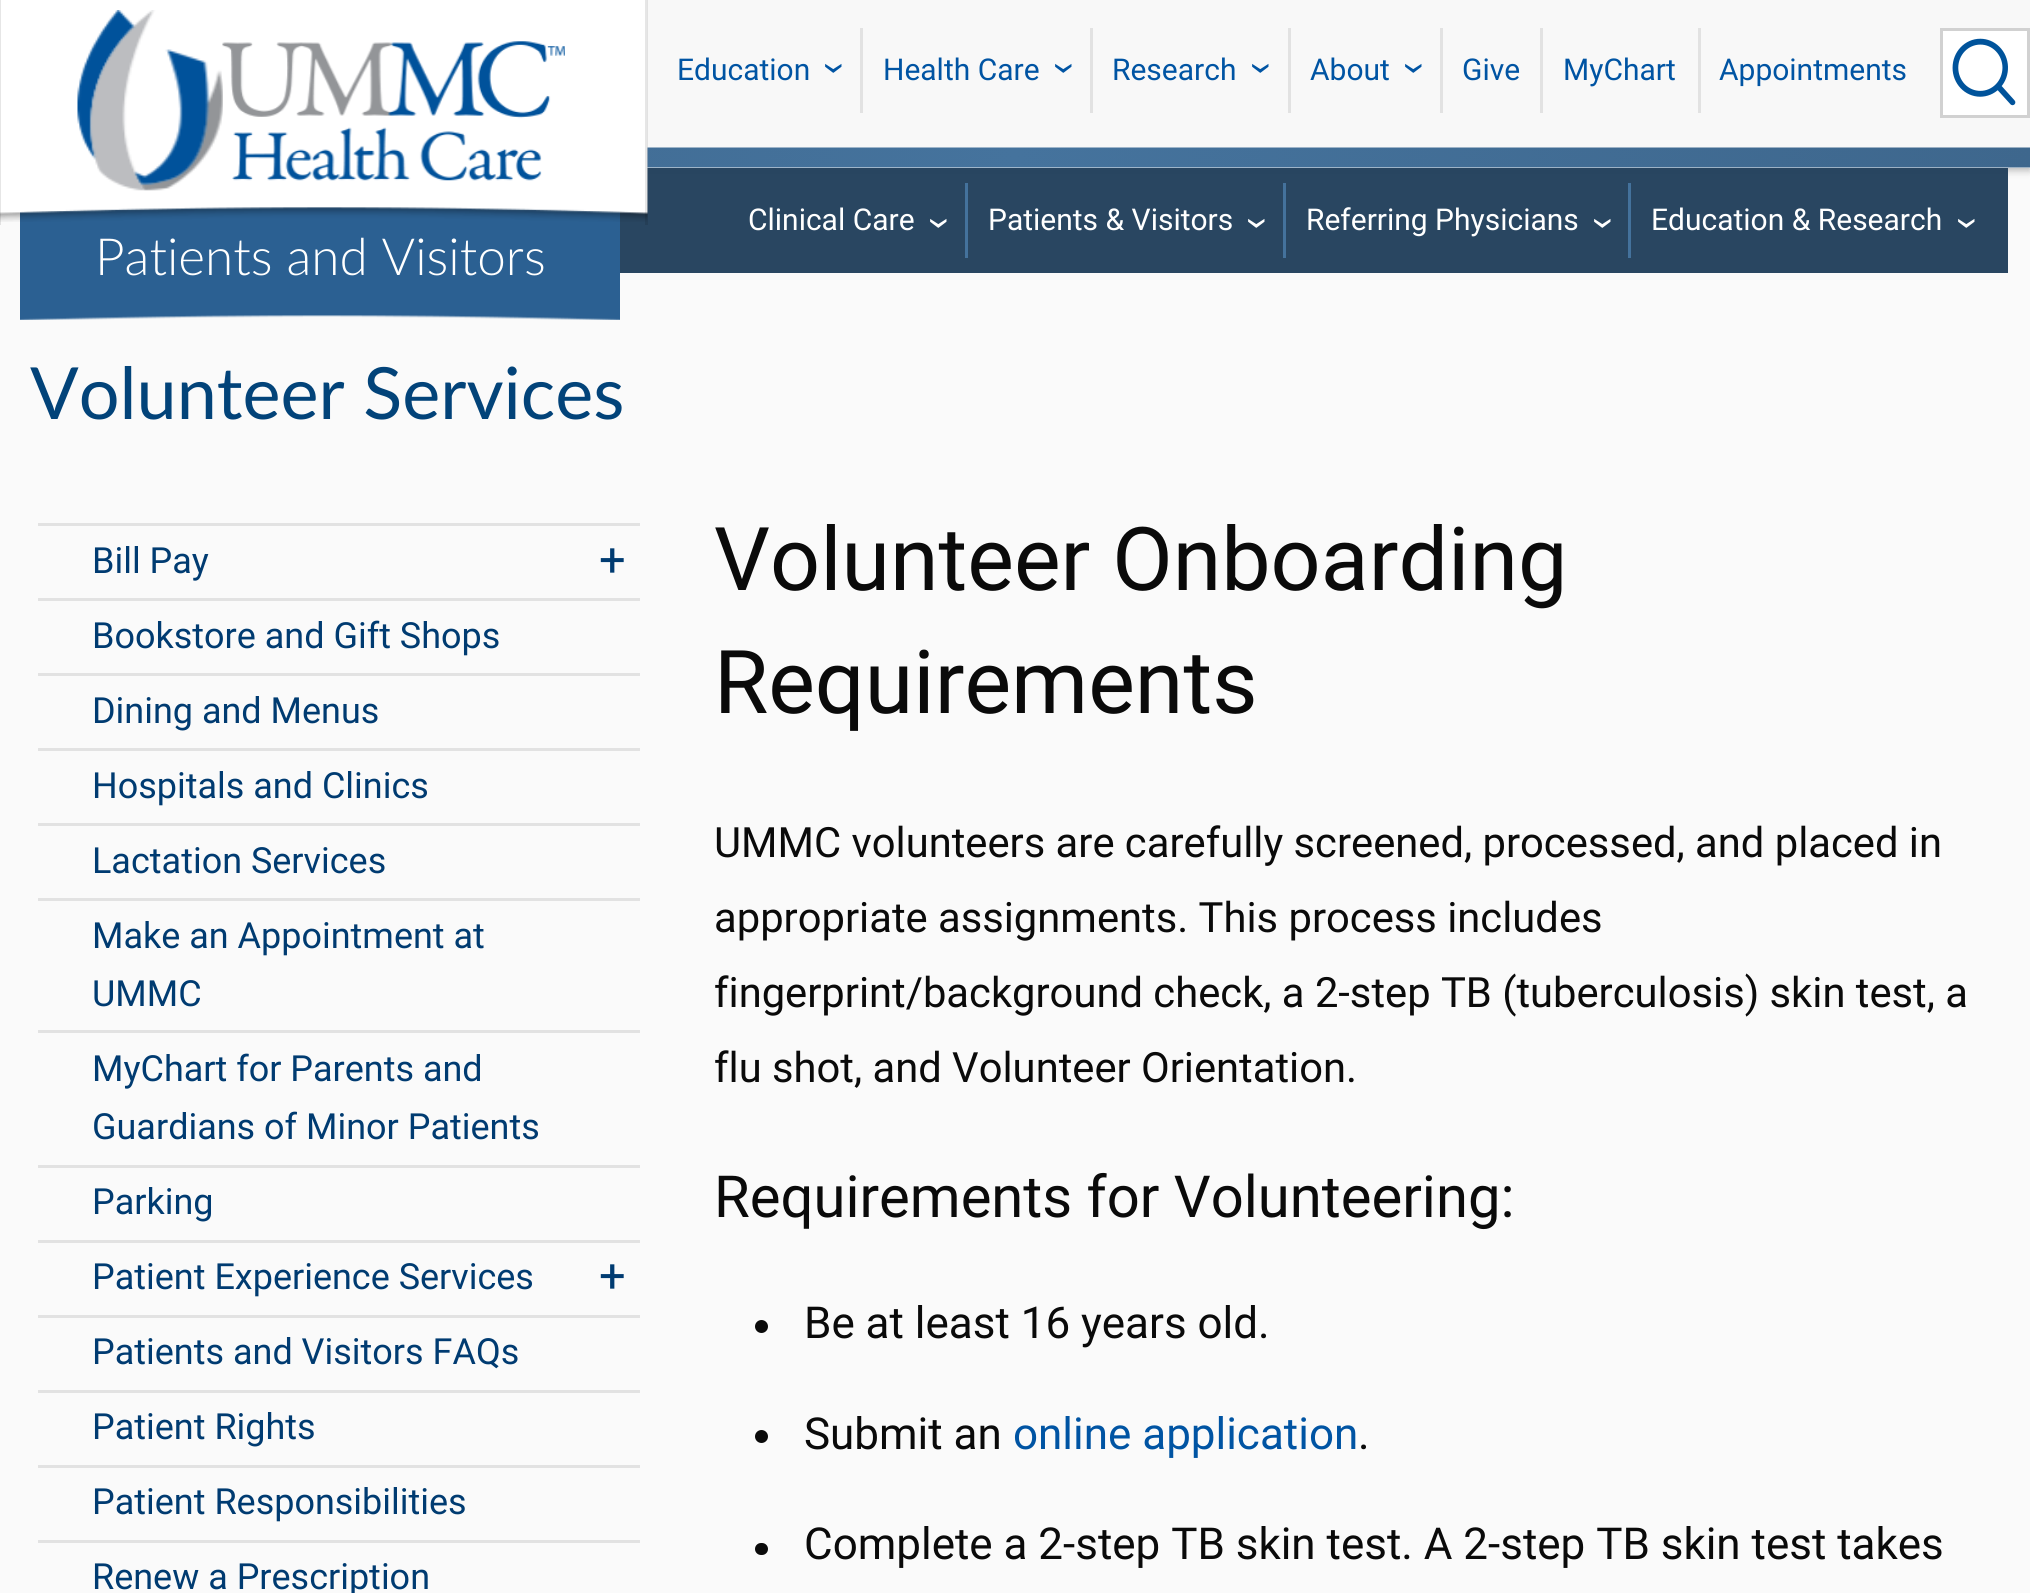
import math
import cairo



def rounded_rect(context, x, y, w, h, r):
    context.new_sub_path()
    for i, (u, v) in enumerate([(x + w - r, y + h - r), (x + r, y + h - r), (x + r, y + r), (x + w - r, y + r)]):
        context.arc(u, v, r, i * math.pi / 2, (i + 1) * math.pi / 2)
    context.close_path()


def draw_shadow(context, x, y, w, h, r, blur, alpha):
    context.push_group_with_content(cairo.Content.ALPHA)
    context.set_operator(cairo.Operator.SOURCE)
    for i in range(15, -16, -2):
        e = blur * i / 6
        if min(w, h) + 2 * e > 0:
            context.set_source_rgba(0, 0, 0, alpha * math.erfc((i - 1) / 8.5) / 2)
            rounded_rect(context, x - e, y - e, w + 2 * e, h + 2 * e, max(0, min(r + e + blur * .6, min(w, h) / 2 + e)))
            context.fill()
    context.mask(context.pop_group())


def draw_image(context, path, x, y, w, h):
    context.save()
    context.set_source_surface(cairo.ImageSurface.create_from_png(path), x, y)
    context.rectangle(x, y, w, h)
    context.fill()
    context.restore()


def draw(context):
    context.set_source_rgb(250 / 255, 250 / 255, 250 / 255)
    context.paint()
    context.set_source_rgb(0, 0, 0)
    draw_shadow(context, 0, 3, 2030, 167, 0, 4, 0.3)
    context.set_source_rgb(248 / 255, 248 / 255, 248 / 255)
    context.rectangle(647, 0, 1383, 168)
    context.fill()
    draw_image(context, "images/1.png", 647, 147, 1383, 21)
    context.set_source_rgba(35 / 255, 65 / 255, 93 / 255, 0.97)
    context.rectangle(620, 168, 1388, 105)
    context.fill()
    draw_image(context, "images/6.png", 20, 207, 600, 113)
    draw_image(context, "images/2.png", 0, 0, 648, 222)
    context.set_source_rgba(0, 0, 0, 0.1)
    context.rectangle(645, 0, 3, 225)
    context.fill()
    context.rectangle(0, 0, 1, 225)
    context.fill()
    draw_image(context, "images/3.png", 77, 10, 146, 181)
    draw_image(context, "images/4.png", 222, 41, 343, 140)
    context.set_source_rgb(226 / 255, 226 / 255, 226 / 255)
    context.rectangle(860, 28, 3, 85)
    context.fill()
    context.rectangle(1090, 28, 3, 85)
    context.fill()
    context.rectangle(1288, 28, 3, 85)
    context.fill()
    context.rectangle(1440, 28, 3, 85)
    context.fill()
    context.rectangle(1540, 28, 3, 85)
    context.fill()
    context.rectangle(1698, 28, 3, 85)
    context.fill()
    context.set_source_rgb(68 / 255, 114 / 255, 156 / 255)
    context.rectangle(965, 183, 3, 75)
    context.fill()
    context.rectangle(1283, 183, 3, 75)
    context.fill()
    context.rectangle(1628, 183, 3, 75)
    context.fill()
    context.set_source_rgb(1, 1, 1)
    context.rectangle(1943, 31, 84, 84)
    context.fill()
    draw_image(context, "images/5.png", 1952, 38, 64, 68)
    context.rectangle(1941.5, 29.5, 87, 87)
    context.set_source_rgb(209 / 255, 209 / 255, 209 / 255)
    context.set_line_width(3)
    context.stroke()
    context.set_source_rgb(226 / 255, 226 / 255, 226 / 255)
    context.rectangle(38, 523, 602, 3)
    context.fill()
    context.rectangle(38, 598, 602, 3)
    context.fill()
    context.rectangle(38, 673, 602, 3)
    context.fill()
    context.rectangle(38, 748, 602, 3)
    context.fill()
    context.rectangle(38, 823, 602, 3)
    context.fill()
    context.rectangle(38, 898, 602, 3)
    context.fill()
    context.rectangle(38, 1030, 602, 3)
    context.fill()
    context.rectangle(38, 1165, 602, 3)
    context.fill()
    context.rectangle(38, 1240, 602, 3)
    context.fill()
    context.rectangle(38, 1315, 602, 3)
    context.fill()
    context.rectangle(38, 1390, 602, 3)
    context.fill()
    context.rectangle(38, 1465, 602, 3)
    context.fill()
    context.rectangle(38, 1540, 602, 3)
    context.fill()
    context.set_source_rgb(10 / 255, 10 / 255, 10 / 255)
    context.arc(761.5, 1326.5, 6.5, 0, 2 * math.pi)
    context.fill()
    context.arc(761.5, 1436.5, 6.5, 0, 2 * math.pi)
    context.fill()
    rounded_rect(context, 755, 1543, 13, 12, 6)
    context.fill()
    context.select_font_face("Roboto")
    context.set_font_size(30)
    context.set_source_rgb(0, 84 / 255, 163 / 255)
    context.move_to(677, 80)
    context.show_text("Education")
    context.set_font_size(42)
    context.save()
    context.translate(822, 62)
    context.rotate(90 * math.pi / 180)
    context.move_to(0, 0)
    context.show_text("›")
    context.restore()
    context.set_font_size(30)
    context.move_to(883, 80)
    context.show_text("Health Care")
    context.set_font_size(42)
    context.save()
    context.translate(1052, 62)
    context.rotate(90 * math.pi / 180)
    context.move_to(0, 0)
    context.show_text("›")
    context.restore()
    context.set_font_size(30)
    context.move_to(1112, 80)
    context.show_text("Research")
    context.set_font_size(42)
    context.save()
    context.translate(1249, 62)
    context.rotate(90 * math.pi / 180)
    context.move_to(0, 0)
    context.show_text("›")
    context.restore()
    context.set_font_size(30)
    context.move_to(1310, 80)
    context.show_text("About")
    context.set_font_size(42)
    context.save()
    context.translate(1402, 62)
    context.rotate(90 * math.pi / 180)
    context.move_to(0, 0)
    context.show_text("›")
    context.restore()
    context.set_font_size(30)
    context.move_to(1462, 80)
    context.show_text("Give")
    context.move_to(1563, 80)
    context.show_text("MyChart")
    context.move_to(1719, 80)
    context.show_text("Appointments")
    context.set_source_rgb(1, 1, 1)
    context.move_to(748, 230)
    context.show_text("Clinical Care")
    context.set_font_size(42)
    context.save()
    context.translate(927, 217)
    context.rotate(90 * math.pi / 180)
    context.move_to(0, 0)
    context.show_text("›")
    context.restore()
    context.set_font_size(30)
    context.move_to(988, 230)
    context.show_text("Patients & Visitors")
    context.set_font_size(42)
    context.save()
    context.translate(1245, 217)
    context.rotate(90 * math.pi / 180)
    context.move_to(0, 0)
    context.show_text("›")
    context.restore()
    context.set_font_size(30)
    context.move_to(1306, 230)
    context.show_text("Referring Physicians")
    context.set_font_size(42)
    context.save()
    context.translate(1591, 217)
    context.rotate(90 * math.pi / 180)
    context.move_to(0, 0)
    context.show_text("›")
    context.restore()
    context.set_font_size(30)
    context.move_to(1651, 230)
    context.show_text("Education & Research")
    context.set_font_size(42)
    context.save()
    context.translate(1955, 217)
    context.rotate(90 * math.pi / 180)
    context.move_to(0, 0)
    context.show_text("›")
    context.restore()
    context.select_font_face("Lato Light")
    context.set_font_size(51.25)
    context.move_to(95, 275)
    context.show_text("Patients and Visitors")
    context.select_font_face("Lato")
    context.set_font_size(72)
    context.set_source_rgb(2 / 255, 67 / 255, 121 / 255)
    context.move_to(30, 419)
    context.show_text("Volunteer Services")
    context.select_font_face("Roboto")
    context.set_font_size(36)
    context.set_source_rgb(0, 59 / 255, 113 / 255)
    context.move_to(92, 573)
    context.show_text("Bill Pay")
    context.set_font_size(47)
    context.move_to(599, 576)
    context.show_text("+")
    context.set_font_size(36)
    context.move_to(92, 648)
    context.show_text("Bookstore and Gift Shops")
    context.move_to(92, 723)
    context.show_text("Dining and Menus")
    context.move_to(92, 798)
    context.show_text("Hospitals and Clinics")
    context.move_to(92, 873)
    context.show_text("Lactation Services")
    context.move_to(92, 948)
    context.show_text("Make an Appointment at")
    context.move_to(92, 1006)
    context.show_text("UMMC")
    context.move_to(92, 1081)
    context.show_text("MyChart for Parents and")
    context.move_to(92, 1139)
    context.show_text("Guardians of Minor Patients")
    context.move_to(92, 1214)
    context.show_text("Parking")
    context.move_to(92, 1289)
    context.show_text("Patient Experience Services")
    context.set_font_size(47)
    context.move_to(599, 1292)
    context.show_text("+")
    context.set_font_size(36)
    context.move_to(92, 1364)
    context.show_text("Patients and Visitors FAQs")
    context.move_to(92, 1439)
    context.show_text("Patient Rights")
    context.move_to(92, 1514)
    context.show_text("Patient Responsibilities")
    context.move_to(92, 1589)
    context.show_text("Renew a Prescription")
    context.set_font_size(88)
    context.set_source_rgb(10 / 255, 10 / 255, 10 / 255)
    context.move_to(714, 590)
    context.show_text("Volunteer Onboarding")
    context.move_to(714, 713)
    context.show_text("Requirements")
    context.set_font_size(41.75)
    context.move_to(714, 857)
    context.show_text("UMMC volunteers are carefully screened, processed, and placed in")
    context.move_to(714, 932)
    context.show_text("appropriate assignments. This process includes")
    context.move_to(714, 1007)
    context.show_text("fingerprint/background check, a 2-step TB (tuberculosis) skin test, a")
    context.move_to(714, 1082)
    context.show_text("flu shot, and Volunteer Orientation.")
    context.set_font_size(58)
    context.move_to(714, 1217)
    context.show_text("Requirements for Volunteering:")
    context.set_font_size(44)
    context.move_to(804, 1338)
    context.show_text("Be at least 16 years old.")
    context.move_to(804, 1449)
    context.show_text("Submit an")
    context.set_source_rgb(0, 84 / 255, 163 / 255)
    context.move_to(1013, 1449)
    context.show_text("online application")
    context.set_source_rgb(10 / 255, 10 / 255, 10 / 255)
    context.move_to(1358, 1449)
    context.show_text(".")
    context.move_to(804, 1559)
    context.show_text("Complete a 2-step TB skin test. A 2-step TB skin test takes")


surface = cairo.ImageSurface(cairo.Format.RGB24, 2030, 1593)
context = cairo.Context(surface)
options = cairo.FontOptions()
options.set_hint_metrics(cairo.HintMetrics.OFF)
options.set_hint_style(cairo.HintStyle.NONE)
context.set_font_options(options)
context.set_miter_limit(4)
draw(context)
surface.write_to_png("out.png")
